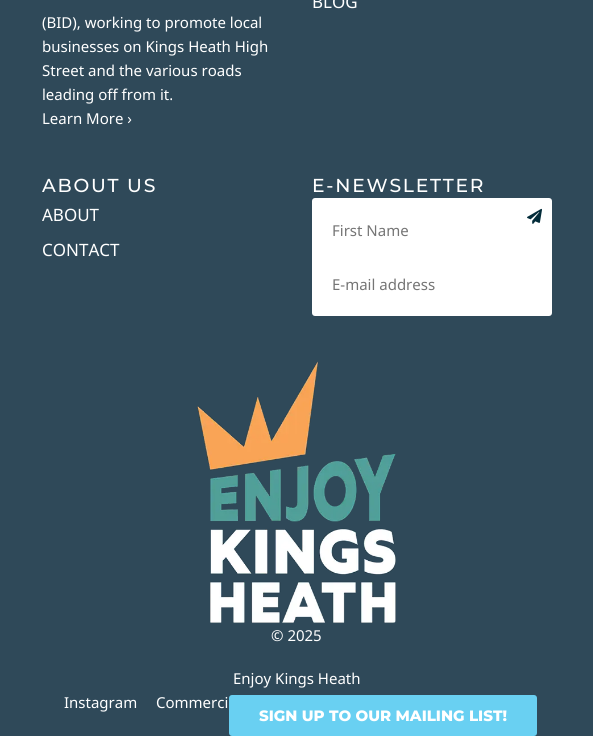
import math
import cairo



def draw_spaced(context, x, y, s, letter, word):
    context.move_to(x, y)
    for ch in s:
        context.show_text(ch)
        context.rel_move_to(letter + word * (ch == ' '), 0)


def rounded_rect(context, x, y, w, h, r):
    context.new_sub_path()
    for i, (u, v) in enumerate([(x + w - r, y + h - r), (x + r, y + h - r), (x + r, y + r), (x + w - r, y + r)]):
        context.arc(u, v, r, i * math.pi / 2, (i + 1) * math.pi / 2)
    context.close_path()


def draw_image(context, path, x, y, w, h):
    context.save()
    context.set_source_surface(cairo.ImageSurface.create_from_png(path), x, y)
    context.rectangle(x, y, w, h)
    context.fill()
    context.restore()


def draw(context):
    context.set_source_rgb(47 / 255, 73 / 255, 89 / 255)
    context.paint()
    context.set_source_rgb(1, 1, 1)
    rounded_rect(context, 312, 198, 240, 118, 3)
    context.fill()
    draw_image(context, "images/1.png", 527, 208, 15, 16)
    draw_image(context, "images/2.png", 197, 361, 199, 262)
    context.set_source_rgb(105 / 255, 208 / 255, 242 / 255)
    rounded_rect(context, 229, 695, 308, 41, 3)
    context.fill()
    context.select_font_face("Noto Sans")
    context.set_font_size(17)
    context.set_source_rgb(1, 1, 1)
    context.move_to(312, 8)
    context.show_text("BLOG")
    context.set_font_size(15)
    context.move_to(42, 28)
    context.show_text("(BID), working to promote local")
    context.move_to(42, 52)
    context.show_text("businesses on Kings Heath High")
    context.move_to(42, 76)
    context.show_text("Street and the various roads")
    context.move_to(42, 100)
    context.show_text("leading off from it.")
    context.move_to(42, 124)
    context.show_text("Learn More ›")
    context.select_font_face("Montserrat Medium")
    context.set_font_size(18.75)
    draw_spaced(context, 42, 192, "ABOUT US", 1.75, 0)
    context.select_font_face("Noto Sans")
    context.set_font_size(17)
    context.move_to(42, 221)
    context.show_text("ABOUT")
    context.move_to(42, 256)
    context.show_text("CONTACT")
    context.select_font_face("Montserrat Medium")
    context.set_font_size(18.75)
    draw_spaced(context, 312, 192, "E-NEWSLETTER", 1.75, 0)
    context.select_font_face("Noto Sans")
    context.set_font_size(15)
    context.set_source_rgb(117 / 255, 117 / 255, 117 / 255)
    context.move_to(332, 236)
    context.show_text("First Name")
    context.move_to(332, 290)
    context.show_text("E-mail address")
    context.set_source_rgb(1, 1, 1)
    context.move_to(271, 641)
    context.show_text("© 2025")
    context.move_to(233, 684)
    context.show_text("Enjoy Kings Heath")
    context.move_to(64, 708)
    context.show_text("Instagram")
    context.move_to(156, 708)
    context.show_text("Commerci")
    context.select_font_face("Montserrat ExtraBold")
    context.move_to(259, 721)
    context.show_text("SIGN UP TO OUR MAILING LIST!")


surface = cairo.ImageSurface(cairo.Format.RGB24, 593, 736)
context = cairo.Context(surface)
options = cairo.FontOptions()
options.set_hint_metrics(cairo.HintMetrics.OFF)
options.set_hint_style(cairo.HintStyle.NONE)
context.set_font_options(options)
context.set_miter_limit(4)
draw(context)
surface.write_to_png("out.png")
